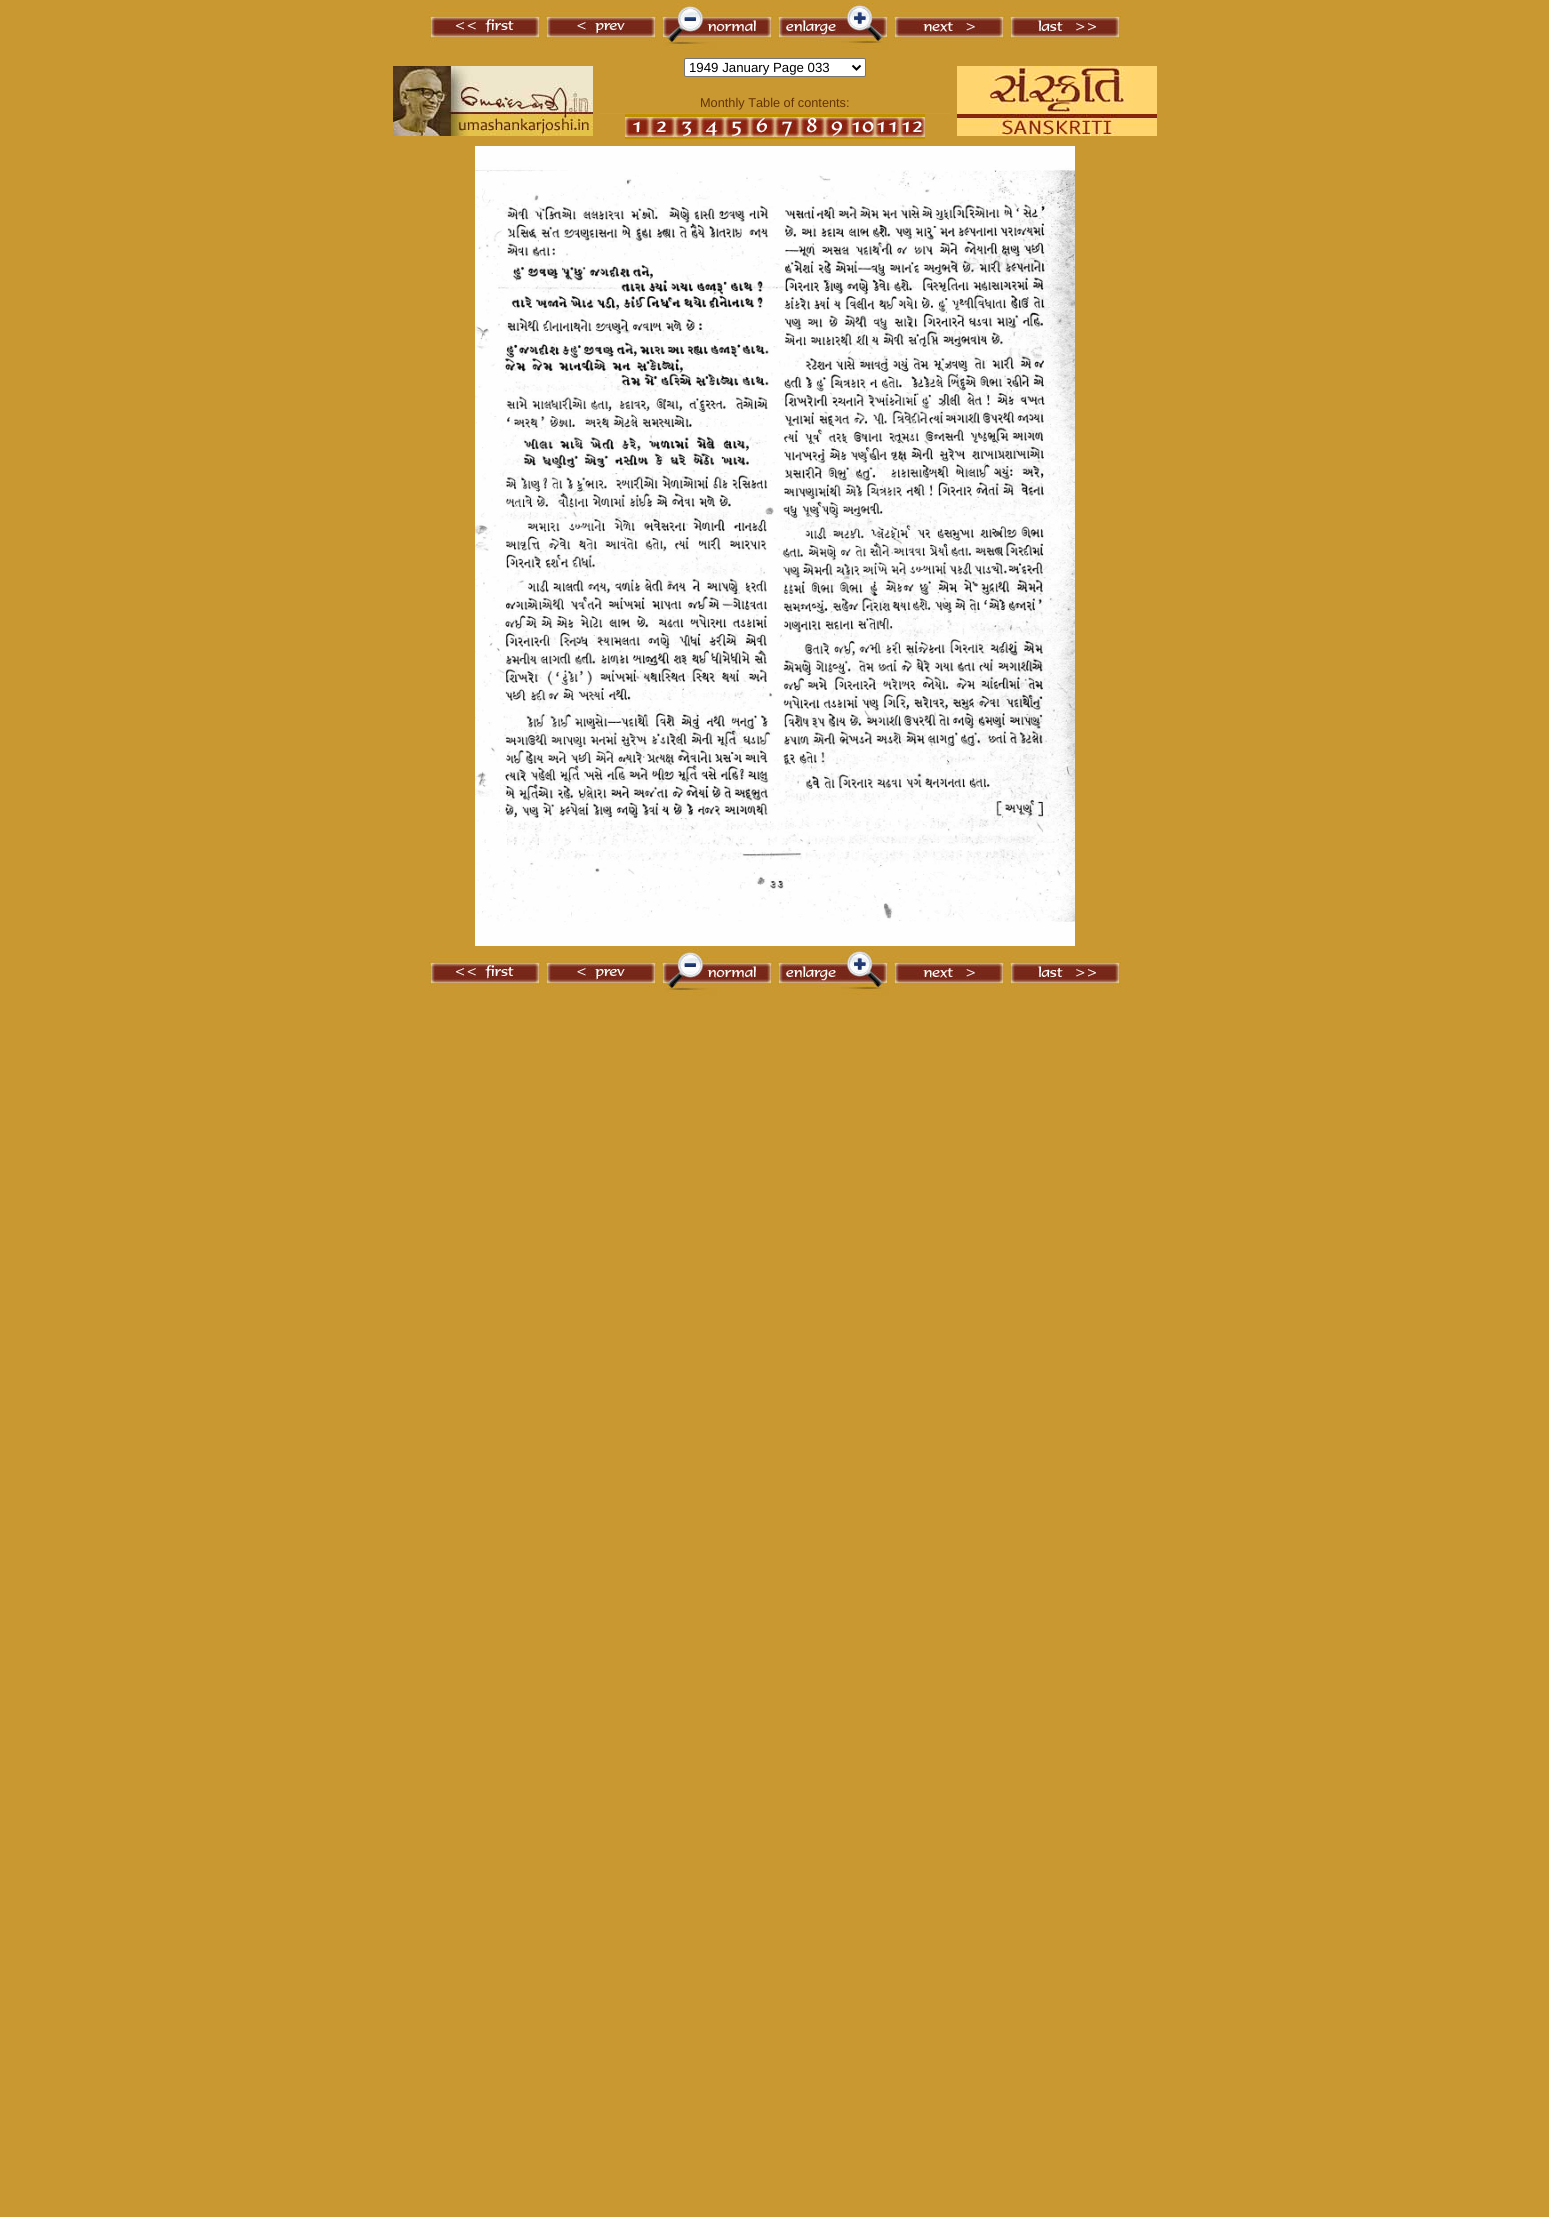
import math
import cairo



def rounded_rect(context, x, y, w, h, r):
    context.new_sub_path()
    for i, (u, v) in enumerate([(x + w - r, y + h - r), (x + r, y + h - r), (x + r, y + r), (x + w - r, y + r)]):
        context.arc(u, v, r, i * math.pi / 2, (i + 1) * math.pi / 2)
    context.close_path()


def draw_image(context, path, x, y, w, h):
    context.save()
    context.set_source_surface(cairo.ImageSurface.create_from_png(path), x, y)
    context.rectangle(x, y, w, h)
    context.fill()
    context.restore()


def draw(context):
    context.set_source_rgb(201 / 255, 152 / 255, 49 / 255)
    context.paint()
    draw_image(context, "images/1.png", 429, 10, 112, 32)
    draw_image(context, "images/2.png", 545, 10, 112, 32)
    draw_image(context, "images/3.png", 661, 2, 112, 48)
    draw_image(context, "images/4.png", 777, 2, 112, 48)
    draw_image(context, "images/5.png", 893, 10, 112, 32)
    draw_image(context, "images/6.png", 1009, 10, 112, 32)
    draw_image(context, "images/7.png", 393, 66, 200, 70)
    context.set_source_rgb(1, 1, 1)
    rounded_rect(context, 684.5, 58.5, 181, 18, 1.5)
    context.fill_preserve()
    context.set_source_rgb(118 / 255, 118 / 255, 118 / 255)
    context.set_line_width(1)
    context.stroke()
    context.new_path()
    context.move_to(852.5, 65.5)
    context.line_to(856.5, 69.5)
    context.line_to(860.5, 65.5)
    context.set_source_rgb(0, 0, 0)
    context.set_line_width(2)
    context.stroke()
    context.set_source_rgb(218 / 255, 153 / 255, 31 / 255)
    context.rectangle(600, 113, 350, 1)
    context.fill()
    draw_image(context, "images/8.png", 625, 114, 25, 25)
    draw_image(context, "images/9.png", 650, 114, 25, 25)
    draw_image(context, "images/10.png", 675, 114, 25, 25)
    draw_image(context, "images/11.png", 700, 114, 25, 25)
    draw_image(context, "images/12.png", 725, 114, 25, 25)
    draw_image(context, "images/13.png", 750, 114, 25, 25)
    draw_image(context, "images/14.png", 775, 114, 25, 25)
    draw_image(context, "images/15.png", 800, 114, 25, 25)
    draw_image(context, "images/16.png", 825, 114, 25, 25)
    draw_image(context, "images/17.png", 850, 114, 25, 25)
    draw_image(context, "images/18.png", 875, 114, 25, 25)
    draw_image(context, "images/19.png", 900, 114, 25, 25)
    draw_image(context, "images/20.png", 957, 66, 200, 70)
    draw_image(context, "images/21.png", 475, 146, 600, 800)
    draw_image(context, "images/1.png", 429, 956, 112, 32)
    draw_image(context, "images/2.png", 545, 956, 112, 32)
    draw_image(context, "images/3.png", 661, 948, 112, 48)
    draw_image(context, "images/4.png", 777, 948, 112, 48)
    draw_image(context, "images/5.png", 893, 956, 112, 32)
    draw_image(context, "images/6.png", 1009, 956, 112, 32)
    context.select_font_face("Liberation Sans")
    context.set_font_size(13.25)
    context.set_source_rgb(0, 0, 0)
    context.move_to(689, 72)
    context.show_text("1949 January Page 033")
    context.set_font_size(12.75)
    context.set_source_rgb(102 / 255, 51 / 255, 0)
    context.move_to(700, 107)
    context.show_text("Monthly Table of contents:")


surface = cairo.ImageSurface(cairo.Format.RGB24, 1549, 2217)
context = cairo.Context(surface)
options = cairo.FontOptions()
options.set_hint_metrics(cairo.HintMetrics.OFF)
options.set_hint_style(cairo.HintStyle.NONE)
context.set_font_options(options)
context.set_miter_limit(4)
draw(context)
surface.write_to_png("out.png")
